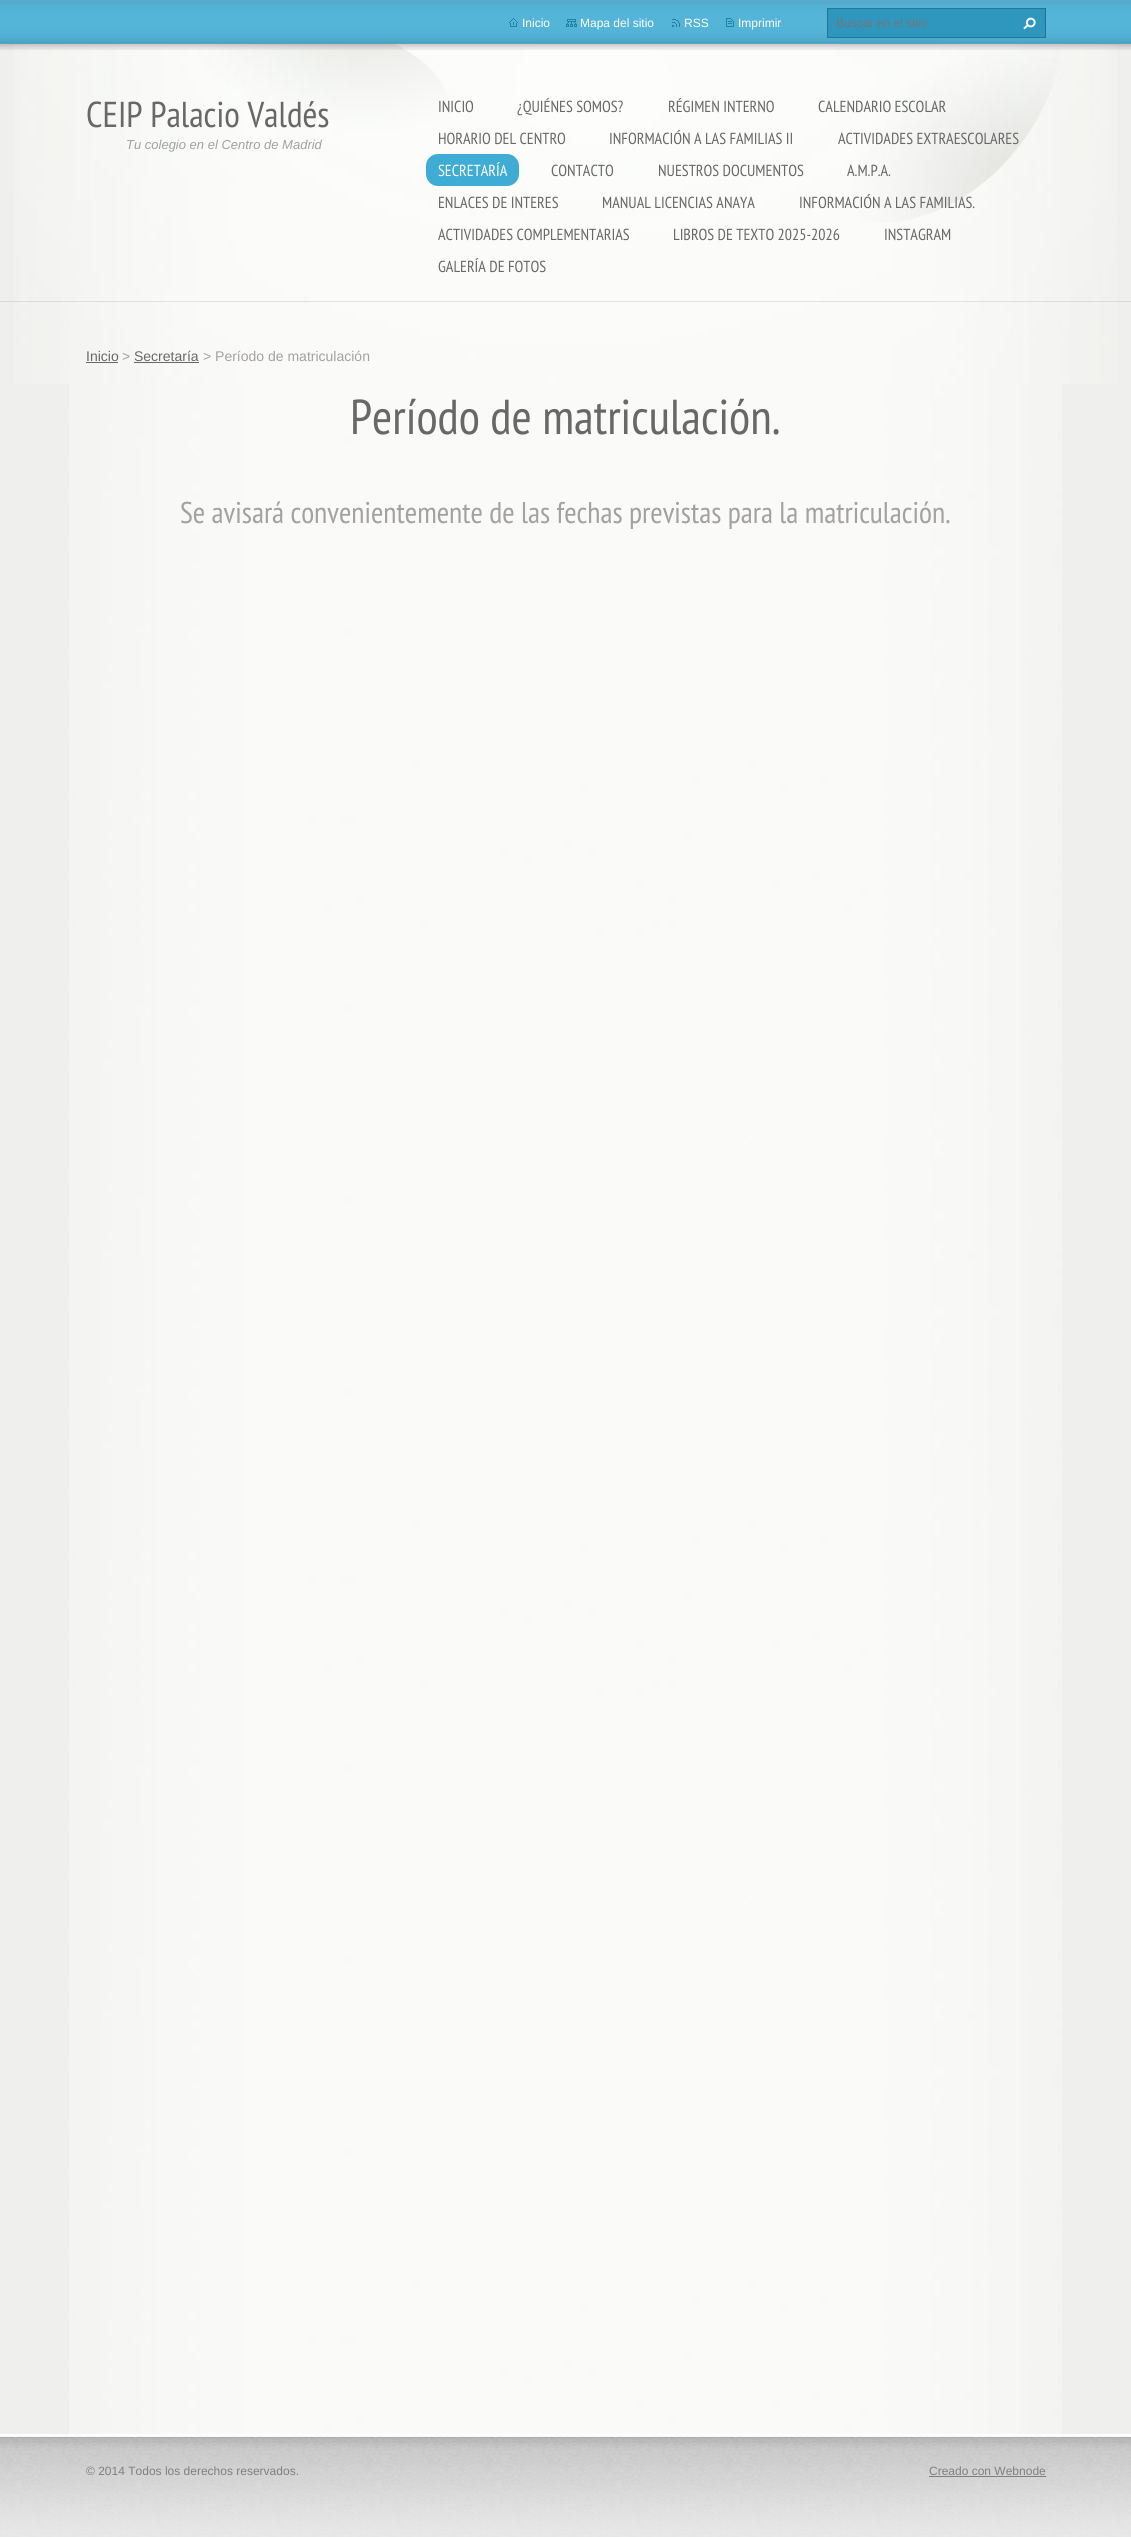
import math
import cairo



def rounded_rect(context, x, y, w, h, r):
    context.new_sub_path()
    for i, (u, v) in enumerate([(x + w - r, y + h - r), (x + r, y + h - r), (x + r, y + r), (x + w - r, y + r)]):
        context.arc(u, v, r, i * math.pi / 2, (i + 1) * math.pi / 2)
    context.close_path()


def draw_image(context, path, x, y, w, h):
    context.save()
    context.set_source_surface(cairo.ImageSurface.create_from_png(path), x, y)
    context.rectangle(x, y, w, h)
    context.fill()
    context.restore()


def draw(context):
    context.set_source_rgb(239 / 255, 239 / 255, 237 / 255)
    context.paint()
    draw_image(context, "images/1.png", 69, 384, 993, 2050)
    draw_image(context, "images/2.png", 14, 44, 1103, 340)
    context.set_source_rgba(158 / 255, 158 / 255, 158 / 255, 0.26)
    context.rectangle(0, 301, 1131, 1)
    context.fill()
    draw_image(context, "images/3.png", 0, 0, 1131, 50)
    draw_image(context, "images/4.png", 509, 18, 9, 9)
    draw_image(context, "images/5.png", 566, 19, 11, 8)
    draw_image(context, "images/6.png", 672, 19, 8, 8)
    draw_image(context, "images/7.png", 726, 18, 8, 9)
    draw_image(context, "images/8.png", 827, 8, 219, 30)
    draw_image(context, "images/9.png", 1023, 17, 13, 13)
    context.set_source_rgb(63 / 255, 172 / 255, 213 / 255)
    rounded_rect(context, 426, 154, 93, 32, 12)
    context.fill()
    context.set_source_rgb(104 / 255, 104 / 255, 104 / 255)
    context.rectangle(86, 362, 32, 1)
    context.fill()
    context.rectangle(134, 362, 65, 1)
    context.fill()
    draw_image(context, "images/10.png", 0, 2434, 1131, 103)
    context.set_source_rgb(127 / 255, 127 / 255, 127 / 255)
    context.rectangle(929, 2476, 117, 1)
    context.fill()
    context.select_font_face("Liberation Sans")
    context.set_font_size(12)
    context.set_source_rgb(1, 1, 1)
    context.move_to(522, 27)
    context.show_text("Inicio")
    context.move_to(580, 27)
    context.show_text("Mapa del sitio")
    context.move_to(684, 27)
    context.show_text("RSS")
    context.move_to(738, 27)
    context.show_text("Imprimir")
    context.set_source_rgb(117 / 255, 117 / 255, 117 / 255)
    context.move_to(836, 27)
    context.show_text("Buscar en el sitio")
    context.select_font_face("PT Sans Narrow")
    context.set_font_size(36)
    context.set_source_rgb(104 / 255, 104 / 255, 104 / 255)
    context.move_to(86, 127)
    context.show_text("CEIP Palacio Valdés")
    context.select_font_face("Liberation Sans", cairo.FontSlant.ITALIC)
    context.set_font_size(13)
    context.set_source_rgb(163 / 255, 161 / 255, 161 / 255)
    context.move_to(126, 149)
    context.show_text("Tu colegio en el Centro de Madrid")
    context.select_font_face("PT Sans Narrow")
    context.set_font_size(16)
    context.set_source_rgb(104 / 255, 104 / 255, 104 / 255)
    context.move_to(438, 112)
    context.show_text("INICIO")
    context.move_to(517, 112)
    context.show_text("¿QUIÉNES SOMOS?")
    context.move_to(668, 112)
    context.show_text("RÉGIMEN INTERNO")
    context.move_to(818, 112)
    context.show_text("CALENDARIO ESCOLAR")
    context.move_to(438, 144)
    context.show_text("HORARIO DEL CENTRO")
    context.move_to(609, 144)
    context.show_text("INFORMACIÓN A LAS FAMILIAS II")
    context.move_to(838, 144)
    context.show_text("ACTIVIDADES EXTRAESCOLARES")
    context.set_source_rgb(1, 1, 1)
    context.move_to(438, 176)
    context.show_text("SECRETARÍA")
    context.set_source_rgb(104 / 255, 104 / 255, 104 / 255)
    context.move_to(551, 176)
    context.show_text("CONTACTO")
    context.move_to(658, 176)
    context.show_text("NUESTROS DOCUMENTOS")
    context.move_to(847, 176)
    context.show_text("A.M.P.A.")
    context.move_to(438, 208)
    context.show_text("ENLACES DE INTERES")
    context.move_to(602, 208)
    context.show_text("MANUAL LICENCIAS ANAYA")
    context.move_to(799, 208)
    context.show_text("INFORMACIÓN A LAS FAMILIAS.")
    context.move_to(438, 240)
    context.show_text("ACTIVIDADES COMPLEMENTARIAS")
    context.move_to(673, 240)
    context.show_text("LIBROS DE TEXTO 2025-2026")
    context.move_to(884, 240)
    context.show_text("INSTAGRAM")
    context.move_to(438, 272)
    context.show_text("GALERÍA DE FOTOS")
    context.select_font_face("Liberation Sans")
    context.set_font_size(14)
    context.move_to(86, 361)
    context.show_text("Inicio")
    context.set_source_rgb(163 / 255, 161 / 255, 161 / 255)
    context.move_to(122, 361)
    context.show_text(">")
    context.set_source_rgb(104 / 255, 104 / 255, 104 / 255)
    context.move_to(134, 361)
    context.show_text("Secretaría")
    context.set_source_rgb(163 / 255, 161 / 255, 161 / 255)
    context.move_to(203, 361)
    context.show_text("> Período de matriculación")
    context.select_font_face("PT Sans Narrow")
    context.set_font_size(49)
    context.set_source_rgb(104 / 255, 104 / 255, 104 / 255)
    context.move_to(350, 434)
    context.show_text("Período de matriculación.")
    context.set_font_size(30)
    context.set_source_rgb(163 / 255, 161 / 255, 161 / 255)
    context.move_to(180, 523)
    context.show_text("Se avisará convenientemente de las fechas previstas para la matriculación.")
    context.save()
    context.rectangle(86, 2434, 480, 103)
    context.clip()
    context.select_font_face("Liberation Sans")
    context.set_font_size(12)
    context.set_source_rgb(127 / 255, 127 / 255, 127 / 255)
    context.move_to(86, 2475)
    context.show_text("© 2014 Todos los derechos reservados.")
    context.restore()
    context.select_font_face("Liberation Sans")
    context.set_font_size(12)
    context.set_source_rgb(127 / 255, 127 / 255, 127 / 255)
    context.move_to(929, 2475)
    context.show_text("Creado con Webnode")


surface = cairo.ImageSurface(cairo.Format.RGB24, 1131, 2537)
context = cairo.Context(surface)
options = cairo.FontOptions()
options.set_hint_metrics(cairo.HintMetrics.OFF)
options.set_hint_style(cairo.HintStyle.NONE)
context.set_font_options(options)
context.set_miter_limit(4)
draw(context)
surface.write_to_png("out.png")
